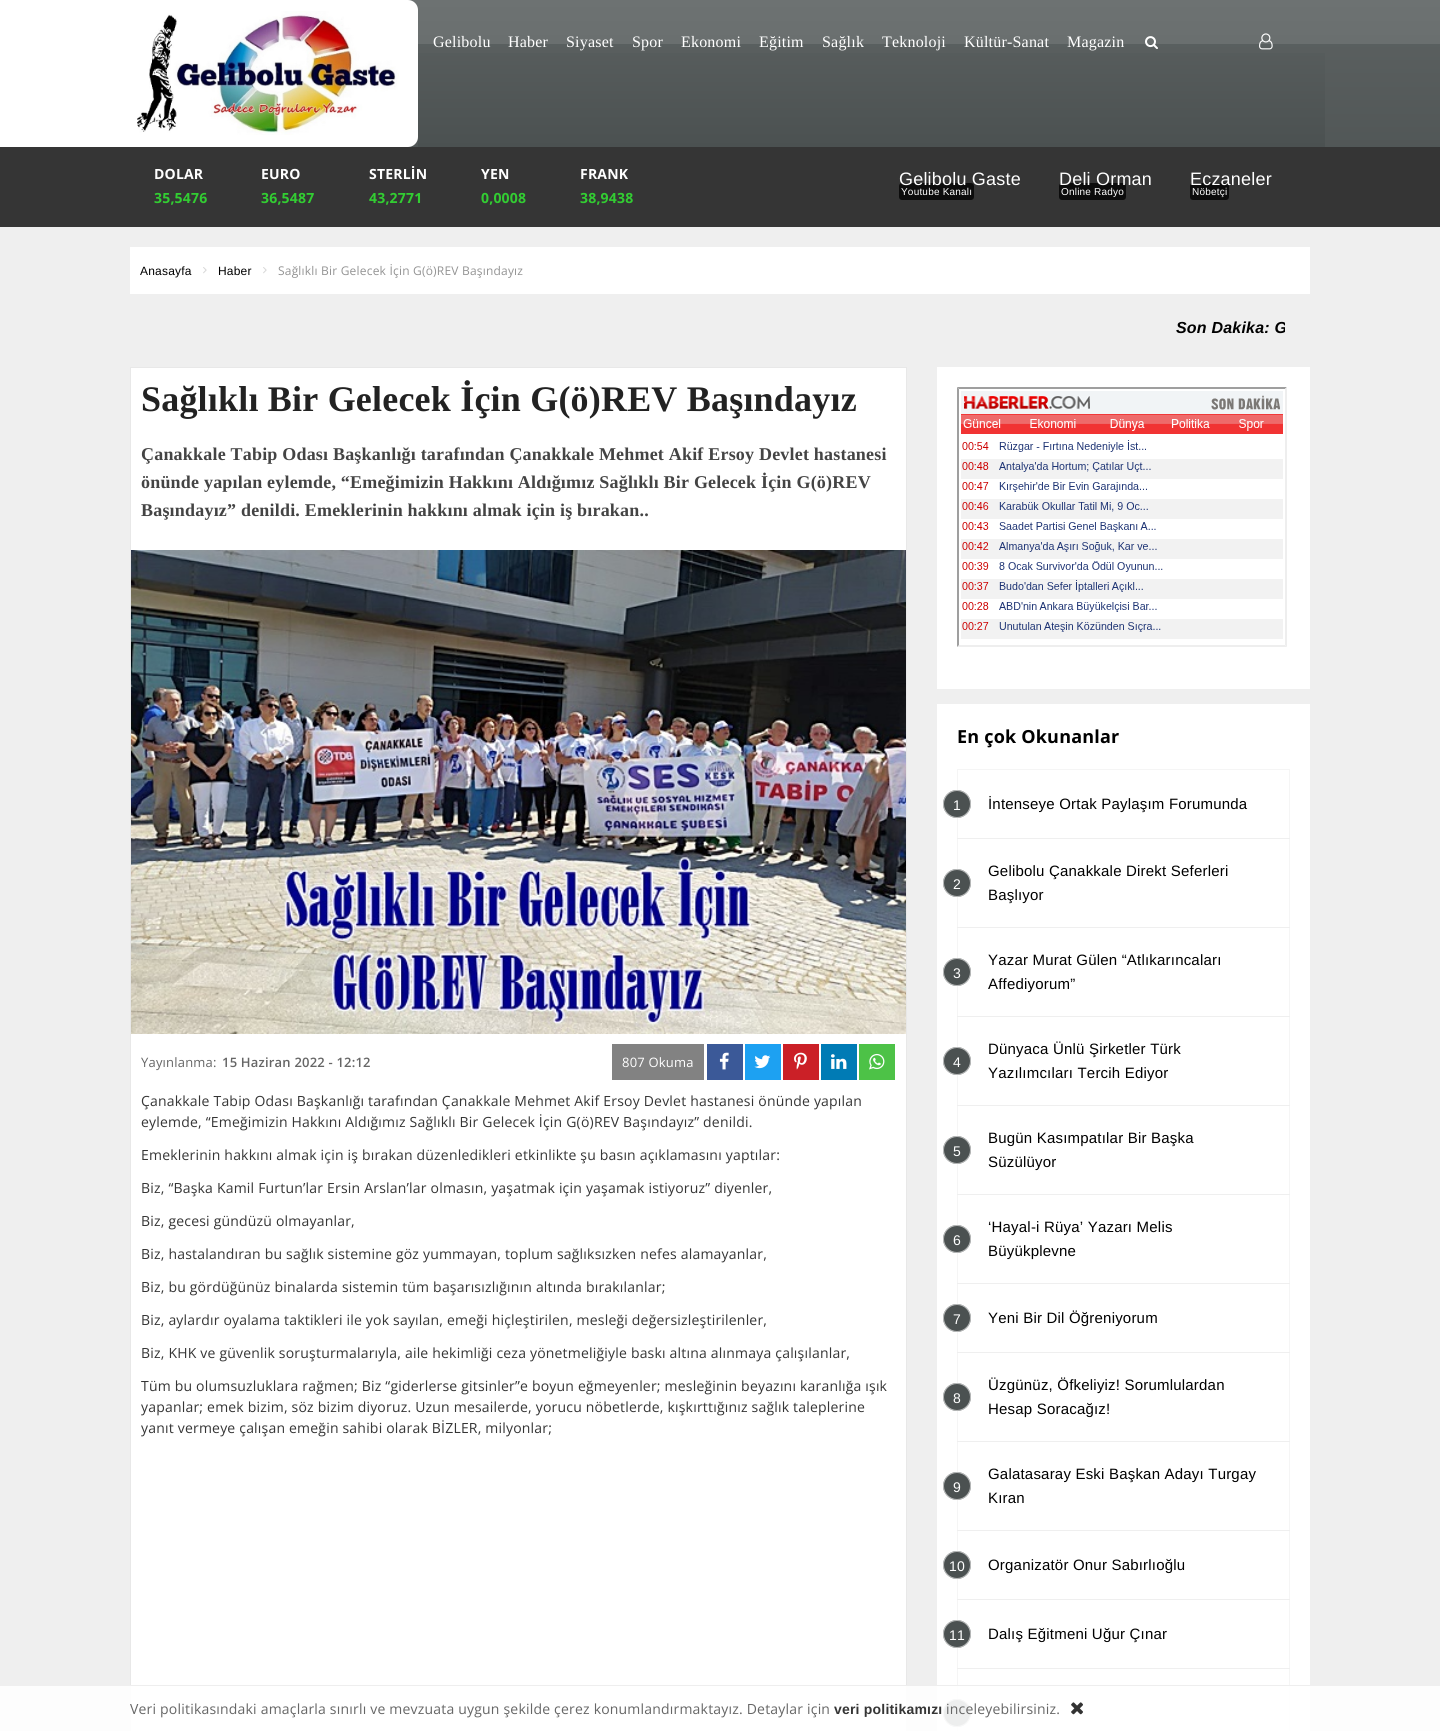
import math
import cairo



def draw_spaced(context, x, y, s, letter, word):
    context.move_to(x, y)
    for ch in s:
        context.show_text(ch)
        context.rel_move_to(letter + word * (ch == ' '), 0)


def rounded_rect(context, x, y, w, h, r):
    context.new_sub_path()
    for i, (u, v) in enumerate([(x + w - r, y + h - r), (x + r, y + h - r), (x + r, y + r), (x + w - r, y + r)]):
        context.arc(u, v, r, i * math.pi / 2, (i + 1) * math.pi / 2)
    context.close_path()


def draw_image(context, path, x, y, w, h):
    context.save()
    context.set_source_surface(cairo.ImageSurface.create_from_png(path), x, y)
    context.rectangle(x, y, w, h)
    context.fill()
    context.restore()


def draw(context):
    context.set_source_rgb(239 / 255, 239 / 255, 239 / 255)
    context.paint()
    gradient = cairo.LinearGradient(720, 0, 720, 227)
    gradient.add_color_stop_rgba(0, 93 / 255, 98 / 255, 98 / 255, 1)
    gradient.add_color_stop_rgba(1, 75 / 255, 81 / 255, 81 / 255, 1)
    context.set_source(gradient)
    context.rectangle(408, 44, 1032, 103)
    context.fill()
    gradient = cairo.LinearGradient(720, 0, 720, 227)
    gradient.add_color_stop_rgba(0, 109 / 255, 114 / 255, 114 / 255, 1)
    gradient.add_color_stop_rgba(1, 93 / 255, 98 / 255, 98 / 255, 1)
    context.set_source(gradient)
    context.rectangle(408, 0, 1032, 44)
    context.fill()
    context.set_source_rgb(1, 1, 1)
    context.new_path()
    context.move_to(115, 0)
    context.line_to(408, 0)
    context.curve_to(413.5, 0, 418, 4.5, 418, 10)
    context.line_to(418, 137)
    context.curve_to(418, 142.5, 413.5, 147, 408, 147)
    context.line_to(115, 147)
    context.close_path()
    context.fill()
    context.rectangle(0, 0, 115, 147)
    context.fill()
    draw_image(context, "images/1.png", 137, 11, 262, 124)
    gradient = cairo.LinearGradient(872, 0, 872, 147)
    gradient.add_color_stop_rgba(0, 93 / 255, 98 / 255, 98 / 255, 1)
    gradient.add_color_stop_rgba(1, 75 / 255, 81 / 255, 81 / 255, 1)
    context.set_source(gradient)
    context.rectangle(418, 53, 907, 94)
    context.fill()
    draw_image(context, "images/2.png", 1145, 36, 13, 13)
    draw_image(context, "images/3.png", 1259, 33, 14, 17)
    context.set_source_rgb(53 / 255, 53 / 255, 53 / 255)
    context.rectangle(0, 147, 1440, 80)
    context.fill()
    context.set_source_rgb(12 / 255, 12 / 255, 12 / 255)
    rounded_rect(context, 899, 183, 75, 17, 3)
    context.fill()
    rounded_rect(context, 1059, 183, 67, 17, 3)
    context.fill()
    rounded_rect(context, 1190, 183, 39, 17, 3)
    context.fill()
    context.set_source_rgb(1, 1, 1)
    context.rectangle(130, 247, 1180, 47)
    context.fill()
    draw_image(context, "images/4.png", 203, 267, 4, 7)
    draw_image(context, "images/4.png", 263, 267, 4, 7)
    context.rectangle(130.5, 367.5, 776, 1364)
    context.fill_preserve()
    context.set_source_rgb(232 / 255, 232 / 255, 232 / 255)
    context.set_line_width(1)
    context.stroke()
    draw_image(context, "images/5.png", 131, 550, 775, 484)
    context.set_source_rgb(130 / 255, 130 / 255, 130 / 255)
    context.rectangle(612, 1044, 92, 36)
    context.fill()
    context.set_source_rgb(59 / 255, 89 / 255, 152 / 255)
    context.rectangle(707, 1044, 36, 36)
    context.fill()
    draw_image(context, "images/6.png", 719, 1052, 10, 18)
    context.set_source_rgb(29 / 255, 161 / 255, 242 / 255)
    context.rectangle(745, 1044, 36, 36)
    context.fill()
    draw_image(context, "images/7.png", 754, 1055, 17, 14)
    context.set_source_rgb(203 / 255, 32 / 255, 39 / 255)
    context.rectangle(783, 1044, 36, 36)
    context.fill()
    draw_image(context, "images/8.png", 794, 1052, 13, 18)
    context.set_source_rgb(0, 123 / 255, 181 / 255)
    context.rectangle(821, 1044, 36, 36)
    context.fill()
    draw_image(context, "images/9.png", 831, 1054, 16, 15)
    context.set_source_rgb(77 / 255, 194 / 255, 71 / 255)
    context.rectangle(859, 1044, 36, 36)
    context.fill()
    draw_image(context, "images/10.png", 869, 1053, 16, 17)
    context.set_source_rgb(1, 1, 1)
    context.rectangle(937, 367, 373, 322)
    context.fill()
    context.set_source_rgb(159 / 255, 159 / 255, 159 / 255)
    context.new_path()
    context.move_to(957, 387)
    context.line_to(1287, 387)
    context.line_to(1285, 389)
    context.line_to(959, 389)
    context.close_path()
    context.fill()
    context.set_source_rgb(238 / 255, 238 / 255, 238 / 255)
    context.new_path()
    context.move_to(1287, 387)
    context.line_to(1287, 647)
    context.line_to(1285, 645)
    context.line_to(1285, 389)
    context.close_path()
    context.fill()
    context.new_path()
    context.move_to(1287, 647)
    context.line_to(957, 647)
    context.line_to(959, 645)
    context.line_to(1285, 645)
    context.close_path()
    context.fill()
    context.set_source_rgb(159 / 255, 159 / 255, 159 / 255)
    context.new_path()
    context.move_to(957, 647)
    context.line_to(957, 387)
    context.line_to(959, 389)
    context.line_to(959, 645)
    context.close_path()
    context.fill()
    draw_image(context, "images/11.png", 961, 391, 322, 248)
    context.set_source_rgb(1, 1, 1)
    context.rectangle(937, 704, 373, 1027)
    context.fill()
    context.rectangle(957.5, 769.5, 332, 69)
    context.set_source_rgb(245 / 255, 245 / 255, 245 / 255)
    context.stroke()
    context.set_source_rgb(75 / 255, 81 / 255, 81 / 255)
    context.arc(957, 804, 14, 0, 2 * math.pi)
    context.fill()
    context.arc(957, 804, 13.5, 0, 2 * math.pi)
    context.set_source_rgba(231 / 255, 231 / 255, 231 / 255, 0.7)
    context.stroke()
    context.rectangle(957.5, 838.5, 332, 89)
    context.set_source_rgba(231 / 255, 231 / 255, 231 / 255, 0.4)
    context.stroke()
    context.set_source_rgb(75 / 255, 81 / 255, 81 / 255)
    context.arc(957, 883, 14, 0, 2 * math.pi)
    context.fill()
    context.arc(957, 883, 13.5, 0, 2 * math.pi)
    context.set_source_rgba(231 / 255, 231 / 255, 231 / 255, 0.7)
    context.stroke()
    context.rectangle(957.5, 927.5, 332, 89)
    context.set_source_rgba(231 / 255, 231 / 255, 231 / 255, 0.4)
    context.stroke()
    context.set_source_rgb(75 / 255, 81 / 255, 81 / 255)
    context.arc(957, 972, 14, 0, 2 * math.pi)
    context.fill()
    context.arc(957, 972, 13.5, 0, 2 * math.pi)
    context.set_source_rgba(231 / 255, 231 / 255, 231 / 255, 0.7)
    context.stroke()
    context.rectangle(957.5, 1016.5, 332, 89)
    context.set_source_rgba(231 / 255, 231 / 255, 231 / 255, 0.4)
    context.stroke()
    context.set_source_rgb(75 / 255, 81 / 255, 81 / 255)
    context.arc(957, 1061, 14, 0, 2 * math.pi)
    context.fill()
    context.arc(957, 1061, 13.5, 0, 2 * math.pi)
    context.set_source_rgba(231 / 255, 231 / 255, 231 / 255, 0.7)
    context.stroke()
    context.rectangle(957.5, 1105.5, 332, 89)
    context.set_source_rgba(231 / 255, 231 / 255, 231 / 255, 0.4)
    context.stroke()
    context.set_source_rgb(75 / 255, 81 / 255, 81 / 255)
    context.arc(957, 1150, 14, 0, 2 * math.pi)
    context.fill()
    context.arc(957, 1150, 13.5, 0, 2 * math.pi)
    context.set_source_rgba(231 / 255, 231 / 255, 231 / 255, 0.7)
    context.stroke()
    context.rectangle(957.5, 1194.5, 332, 89)
    context.set_source_rgba(231 / 255, 231 / 255, 231 / 255, 0.4)
    context.stroke()
    context.set_source_rgb(75 / 255, 81 / 255, 81 / 255)
    context.arc(957, 1239, 14, 0, 2 * math.pi)
    context.fill()
    context.arc(957, 1239, 13.5, 0, 2 * math.pi)
    context.set_source_rgba(231 / 255, 231 / 255, 231 / 255, 0.7)
    context.stroke()
    context.rectangle(957.5, 1283.5, 332, 69)
    context.set_source_rgba(231 / 255, 231 / 255, 231 / 255, 0.4)
    context.stroke()
    context.set_source_rgb(75 / 255, 81 / 255, 81 / 255)
    context.arc(957, 1318, 14, 0, 2 * math.pi)
    context.fill()
    context.arc(957, 1318, 13.5, 0, 2 * math.pi)
    context.set_source_rgba(231 / 255, 231 / 255, 231 / 255, 0.7)
    context.stroke()
    context.rectangle(957.5, 1352.5, 332, 89)
    context.set_source_rgba(231 / 255, 231 / 255, 231 / 255, 0.4)
    context.stroke()
    context.set_source_rgb(75 / 255, 81 / 255, 81 / 255)
    context.arc(957, 1397, 14, 0, 2 * math.pi)
    context.fill()
    context.arc(957, 1397, 13.5, 0, 2 * math.pi)
    context.set_source_rgba(231 / 255, 231 / 255, 231 / 255, 0.7)
    context.stroke()
    context.rectangle(957.5, 1441.5, 332, 89)
    context.set_source_rgba(231 / 255, 231 / 255, 231 / 255, 0.4)
    context.stroke()
    context.set_source_rgb(75 / 255, 81 / 255, 81 / 255)
    context.arc(957, 1486, 14, 0, 2 * math.pi)
    context.fill()
    context.arc(957, 1486, 13.5, 0, 2 * math.pi)
    context.set_source_rgba(231 / 255, 231 / 255, 231 / 255, 0.7)
    context.stroke()
    context.rectangle(957.5, 1530.5, 332, 69)
    context.set_source_rgba(231 / 255, 231 / 255, 231 / 255, 0.4)
    context.stroke()
    context.set_source_rgb(75 / 255, 81 / 255, 81 / 255)
    context.arc(957, 1565, 14, 0, 2 * math.pi)
    context.fill()
    context.arc(957, 1565, 13.5, 0, 2 * math.pi)
    context.set_source_rgba(231 / 255, 231 / 255, 231 / 255, 0.7)
    context.stroke()
    context.rectangle(957.5, 1599.5, 332, 69)
    context.set_source_rgba(231 / 255, 231 / 255, 231 / 255, 0.4)
    context.stroke()
    context.set_source_rgb(75 / 255, 81 / 255, 81 / 255)
    context.arc(957, 1634, 14, 0, 2 * math.pi)
    context.fill()
    context.arc(957, 1634, 13.5, 0, 2 * math.pi)
    context.set_source_rgba(231 / 255, 231 / 255, 231 / 255, 0.7)
    context.stroke()
    context.rectangle(957.5, 1668.5, 332, 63)
    context.set_source_rgba(231 / 255, 231 / 255, 231 / 255, 0.4)
    context.stroke()
    context.set_source_rgb(75 / 255, 81 / 255, 81 / 255)
    context.arc(957, 1713, 14, 0, 2 * math.pi)
    context.fill()
    context.arc(957, 1713, 13.5, 0, 2 * math.pi)
    context.set_source_rgba(231 / 255, 231 / 255, 231 / 255, 0.7)
    context.stroke()
    context.set_source_rgba(1, 1, 1, 0.9)
    context.rectangle(0, 1686, 1440, 45)
    context.fill()
    context.set_source_rgb(238 / 255, 238 / 255, 238 / 255)
    context.rectangle(130, 1685, 1180, 1)
    context.fill()
    draw_image(context, "images/12.png", 1071, 1702, 12, 13)
    context.select_font_face("Liberation Serif")
    context.set_font_size(16)
    context.set_source_rgb(1, 1, 1)
    draw_spaced(context, 433, 47, "Gelibolu", 0.2, 0)
    draw_spaced(context, 508, 47, "Haber", 0.2, 0)
    draw_spaced(context, 566, 47, "Siyaset", 0.2, 0)
    draw_spaced(context, 632, 47, "Spor", 0.2, 0)
    draw_spaced(context, 681, 47, "Ekonomi", 0.2, 0)
    draw_spaced(context, 759, 47, "Eğitim", 0.2, 0)
    draw_spaced(context, 822, 47, "Sağlık", 0.2, 0)
    draw_spaced(context, 882, 47, "Teknoloji", 0.2, 0)
    draw_spaced(context, 964, 47, "Kültür-Sanat", 0.2, 0)
    draw_spaced(context, 1067, 47, "Magazin", 0.2, 0)
    context.select_font_face("Open Sans", cairo.FontSlant.NORMAL, cairo.FontWeight.BOLD)
    context.set_font_size(14)
    draw_spaced(context, 154, 179, "DOLAR", 0.2, 0)
    context.set_source_rgb(50 / 255, 205 / 255, 50 / 255)
    draw_spaced(context, 154, 203, "35,5476", 0.2, 0)
    context.set_source_rgb(1, 1, 1)
    draw_spaced(context, 261, 179, "EURO", 0.2, 0)
    context.set_source_rgb(50 / 255, 205 / 255, 50 / 255)
    draw_spaced(context, 261, 203, "36,5487", 0.2, 0)
    context.set_source_rgb(1, 1, 1)
    draw_spaced(context, 369, 179, "STERLİN", 0.2, 0)
    context.set_source_rgb(50 / 255, 205 / 255, 50 / 255)
    draw_spaced(context, 369, 203, "43,2771", 0.2, 0)
    context.set_source_rgb(1, 1, 1)
    draw_spaced(context, 481, 179, "YEN", 0.2, 0)
    context.set_source_rgb(50 / 255, 205 / 255, 50 / 255)
    draw_spaced(context, 481, 203, "0,0008", 0.2, 0)
    context.set_source_rgb(1, 1, 1)
    draw_spaced(context, 580, 179, "FRANK", 0.2, 0)
    context.set_source_rgb(50 / 255, 205 / 255, 50 / 255)
    draw_spaced(context, 580, 203, "38,9438", 0.2, 0)
    context.select_font_face("Liberation Sans")
    context.set_font_size(18)
    context.set_source_rgb(1, 1, 1)
    draw_spaced(context, 899, 185, "Gelibolu Gaste", 0.2, 0)
    context.set_font_size(10)
    draw_spaced(context, 901, 195, "Youtube Kanalı", 0.2, 0)
    context.set_font_size(18)
    draw_spaced(context, 1059, 185, "Deli Orman", 0.2, 0)
    context.set_font_size(10)
    draw_spaced(context, 1061, 195, "Online Radyo", 0.2, 0)
    context.set_font_size(18)
    draw_spaced(context, 1190, 185, "Eczaneler", 0.2, 0)
    context.set_font_size(10)
    draw_spaced(context, 1192, 195, "Nöbetçi", 0.2, 0)
    context.set_font_size(12)
    context.set_source_rgb(0, 0, 0)
    draw_spaced(context, 140, 275, "Anasayfa", 0.2, 0)
    draw_spaced(context, 218, 275, "Haber", 0.2, 0)
    context.select_font_face("Open Sans")
    context.set_source_rgb(147 / 255, 147 / 255, 147 / 255)
    draw_spaced(context, 278, 275, "Sağlıklı Bir Gelecek İçin G(ö)REV Başındayız", 0.2, 0)
    context.save()
    context.rectangle(155, 314, 1130, 26)
    context.clip()
    context.select_font_face("Liberation Sans", cairo.FontSlant.ITALIC, cairo.FontWeight.BOLD)
    context.set_font_size(16)
    context.set_source_rgb(0, 0, 0)
    draw_spaced(context, 1176, 333, "Son Dakika: G", 0.2, 0)
    context.restore()
    context.select_font_face("Liberation Serif", cairo.FontSlant.NORMAL, cairo.FontWeight.BOLD)
    context.set_font_size(36)
    context.set_source_rgb(34 / 255, 34 / 255, 34 / 255)
    draw_spaced(context, 141, 411, "Sağlıklı Bir Gelecek İçin G(ö)REV Başındayız", 0.2, 0)
    context.set_font_size(18)
    context.set_source_rgb(68 / 255, 68 / 255, 68 / 255)
    draw_spaced(context, 141, 460, "Çanakkale Tabip Odası Başkanlığı tarafından Çanakkale Mehmet Akif Ersoy Devlet hastanesi", 0.2, 0)
    draw_spaced(context, 141, 488, "önünde yapılan eylemde, “Emeğimizin Hakkını Aldığımız Sağlıklı Bir Gelecek İçin G(ö)REV", 0.2, 0)
    draw_spaced(context, 141, 516, "Başındayız” denildi. Emeklerinin hakkını almak için iş bırakan..", 0.2, 0)
    context.select_font_face("Open Sans")
    context.set_font_size(13)
    context.set_source_rgb(102 / 255, 102 / 255, 102 / 255)
    draw_spaced(context, 141, 1067, "Yayınlanma:", 0.2, 0)
    context.select_font_face("Open Sans SemiBold")
    draw_spaced(context, 222, 1067, "15 Haziran 2022 - 12:12", 0.2, 0)
    context.select_font_face("Open Sans")
    context.set_source_rgb(1, 1, 1)
    draw_spaced(context, 622, 1067, "807 Okuma", 0.2, 0)
    context.set_font_size(14)
    context.set_source_rgb(53 / 255, 53 / 255, 53 / 255)
    draw_spaced(context, 141, 1106, "Çanakkale Tabip Odası Başkanlığı tarafından Çanakkale Mehmet Akif Ersoy Devlet hastanesi önünde yapılan", 0.2, 0)
    draw_spaced(context, 141, 1127, "eylemde, “Emeğimizin Hakkını Aldığımız Sağlıklı Bir Gelecek İçin G(ö)REV Başındayız” denildi.", 0.2, 0)
    draw_spaced(context, 141, 1160, "Emeklerinin hakkını almak için iş bırakan düzenledikleri etkinlikte şu basın açıklamasını yaptılar:", 0.2, 0)
    draw_spaced(context, 141, 1193, "Biz, “Başka Kamil Furtun’lar Ersin Arslan’lar olmasın, yaşatmak için yaşamak istiyoruz” diyenler,", 0.2, 0)
    draw_spaced(context, 141, 1226, "Biz, gecesi gündüzü olmayanlar,", 0.2, 0)
    draw_spaced(context, 141, 1259, "Biz, hastalandıran bu sağlık sistemine göz yummayan, toplum sağlıksızken nefes alamayanlar,", 0.2, 0)
    draw_spaced(context, 141, 1292, "Biz, bu gördüğünüz binalarda sistemin tüm başarısızlığının altında bırakılanlar;", 0.2, 0)
    draw_spaced(context, 141, 1325, "Biz, aylardır oyalama taktikleri ile yok sayılan, emeği hiçleştirilen, mesleği değersizleştirilenler,", 0.2, 0)
    draw_spaced(context, 141, 1358, "Biz, KHK ve güvenlik soruşturmalarıyla, aile hekimliği ceza yönetmeliğiyle baskı altına alınmaya çalışılanlar,", 0.2, 0)
    draw_spaced(context, 141, 1391, "Tüm bu olumsuzluklara rağmen; Biz “giderlerse gitsinler”e boyun eğmeyenler; mesleğinin beyazını karanlığa ışık", 0.2, 0)
    draw_spaced(context, 141, 1412, "yapanlar; emek bizim, söz bizim diyoruz. Uzun mesailerde, yorucu nöbetlerde, kışkırttığınız sağlık taleplerine", 0.2, 0)
    draw_spaced(context, 141, 1433, "yanıt vermeye çalışan emeğin sahibi olarak BİZLER, milyonlar;", 0.2, 0)
    context.select_font_face("Open Sans", cairo.FontSlant.NORMAL, cairo.FontWeight.BOLD)
    context.set_font_size(18)
    context.set_source_rgb(0, 0, 0)
    draw_spaced(context, 957, 743, "En çok Okunanlar", 0.2, 0)
    context.select_font_face("Liberation Sans")
    context.set_font_size(14)
    context.set_source_rgb(1, 1, 1)
    draw_spaced(context, 953, 810, "1", 0.2, 0)
    context.set_font_size(15)
    context.set_source_rgb(0, 0, 0)
    draw_spaced(context, 988, 809, "İntenseye Ortak Paylaşım Forumunda", 0.2, 0)
    context.set_font_size(14)
    context.set_source_rgb(1, 1, 1)
    draw_spaced(context, 953, 889, "2", 0.2, 0)
    context.set_font_size(15)
    context.set_source_rgb(0, 0, 0)
    draw_spaced(context, 988, 876, "Gelibolu Çanakkale Direkt Seferleri", 0.2, 0)
    draw_spaced(context, 988, 900, "Başlıyor", 0.2, 0)
    context.set_font_size(14)
    context.set_source_rgb(1, 1, 1)
    draw_spaced(context, 953, 978, "3", 0.2, 0)
    context.set_font_size(15)
    context.set_source_rgb(0, 0, 0)
    draw_spaced(context, 988, 965, "Yazar Murat Gülen “Atlıkarıncaları", 0.2, 0)
    draw_spaced(context, 988, 989, "Affediyorum”", 0.2, 0)
    context.set_font_size(14)
    context.set_source_rgb(1, 1, 1)
    draw_spaced(context, 953, 1067, "4", 0.2, 0)
    context.set_font_size(15)
    context.set_source_rgb(0, 0, 0)
    draw_spaced(context, 988, 1054, "Dünyaca Ünlü Şirketler Türk", 0.2, 0)
    draw_spaced(context, 988, 1078, "Yazılımcıları Tercih Ediyor", 0.2, 0)
    context.set_font_size(14)
    context.set_source_rgb(1, 1, 1)
    draw_spaced(context, 953, 1156, "5", 0.2, 0)
    context.set_font_size(15)
    context.set_source_rgb(0, 0, 0)
    draw_spaced(context, 988, 1143, "Bugün Kasımpatılar Bir Başka", 0.2, 0)
    draw_spaced(context, 988, 1167, "Süzülüyor", 0.2, 0)
    context.set_font_size(14)
    context.set_source_rgb(1, 1, 1)
    draw_spaced(context, 953, 1245, "6", 0.2, 0)
    context.set_font_size(15)
    context.set_source_rgb(0, 0, 0)
    draw_spaced(context, 988, 1232, "‘Hayal-i Rüya’ Yazarı Melis", 0.2, 0)
    draw_spaced(context, 988, 1256, "Büyükplevne", 0.2, 0)
    context.set_font_size(14)
    context.set_source_rgb(1, 1, 1)
    draw_spaced(context, 953, 1324, "7", 0.2, 0)
    context.set_font_size(15)
    context.set_source_rgb(0, 0, 0)
    draw_spaced(context, 988, 1323, "Yeni Bir Dil Öğreniyorum", 0.2, 0)
    context.set_font_size(14)
    context.set_source_rgb(1, 1, 1)
    draw_spaced(context, 953, 1403, "8", 0.2, 0)
    context.set_font_size(15)
    context.set_source_rgb(0, 0, 0)
    draw_spaced(context, 988, 1390, "Üzgünüz, Öfkeliyiz! Sorumlulardan", 0.2, 0)
    draw_spaced(context, 988, 1414, "Hesap Soracağız!", 0.2, 0)
    context.set_font_size(14)
    context.set_source_rgb(1, 1, 1)
    draw_spaced(context, 953, 1492, "9", 0.2, 0)
    context.set_font_size(15)
    context.set_source_rgb(0, 0, 0)
    draw_spaced(context, 988, 1479, "Galatasaray Eski Başkan Adayı Turgay", 0.2, 0)
    draw_spaced(context, 988, 1503, "Kıran", 0.2, 0)
    context.set_font_size(14)
    context.set_source_rgb(1, 1, 1)
    draw_spaced(context, 949, 1571, "10", 0.2, 0)
    context.set_font_size(15)
    context.set_source_rgb(0, 0, 0)
    draw_spaced(context, 988, 1570, "Organizatör Onur Sabırlıoğlu", 0.2, 0)
    context.set_font_size(14)
    context.set_source_rgb(1, 1, 1)
    draw_spaced(context, 949, 1640, "11", 0.2, 0)
    context.set_font_size(15)
    context.set_source_rgb(0, 0, 0)
    draw_spaced(context, 988, 1639, "Dalış Eğitmeni Uğur Çınar", 0.2, 0)
    context.select_font_face("Open Sans")
    context.set_font_size(14)
    context.set_source_rgb(102 / 255, 102 / 255, 102 / 255)
    draw_spaced(context, 130, 1714, "Veri politikasındaki amaçlarla sınırlı ve mevzuata uygun şekilde çerez konumlandırmaktayız. Detaylar için", 0.2, 0)
    context.select_font_face("Liberation Sans", cairo.FontSlant.NORMAL, cairo.FontWeight.BOLD)
    context.set_source_rgb(53 / 255, 53 / 255, 53 / 255)
    draw_spaced(context, 834, 1714, "veri politikamızı", 0.2, 0)
    context.select_font_face("Open Sans")
    context.set_source_rgb(102 / 255, 102 / 255, 102 / 255)
    draw_spaced(context, 946, 1714, "inceleyebilirsiniz.", 0.2, 0)


surface = cairo.ImageSurface(cairo.Format.RGB24, 1440, 1731)
context = cairo.Context(surface)
options = cairo.FontOptions()
options.set_hint_metrics(cairo.HintMetrics.OFF)
options.set_hint_style(cairo.HintStyle.NONE)
context.set_font_options(options)
context.set_miter_limit(4)
draw(context)
surface.write_to_png("out.png")
